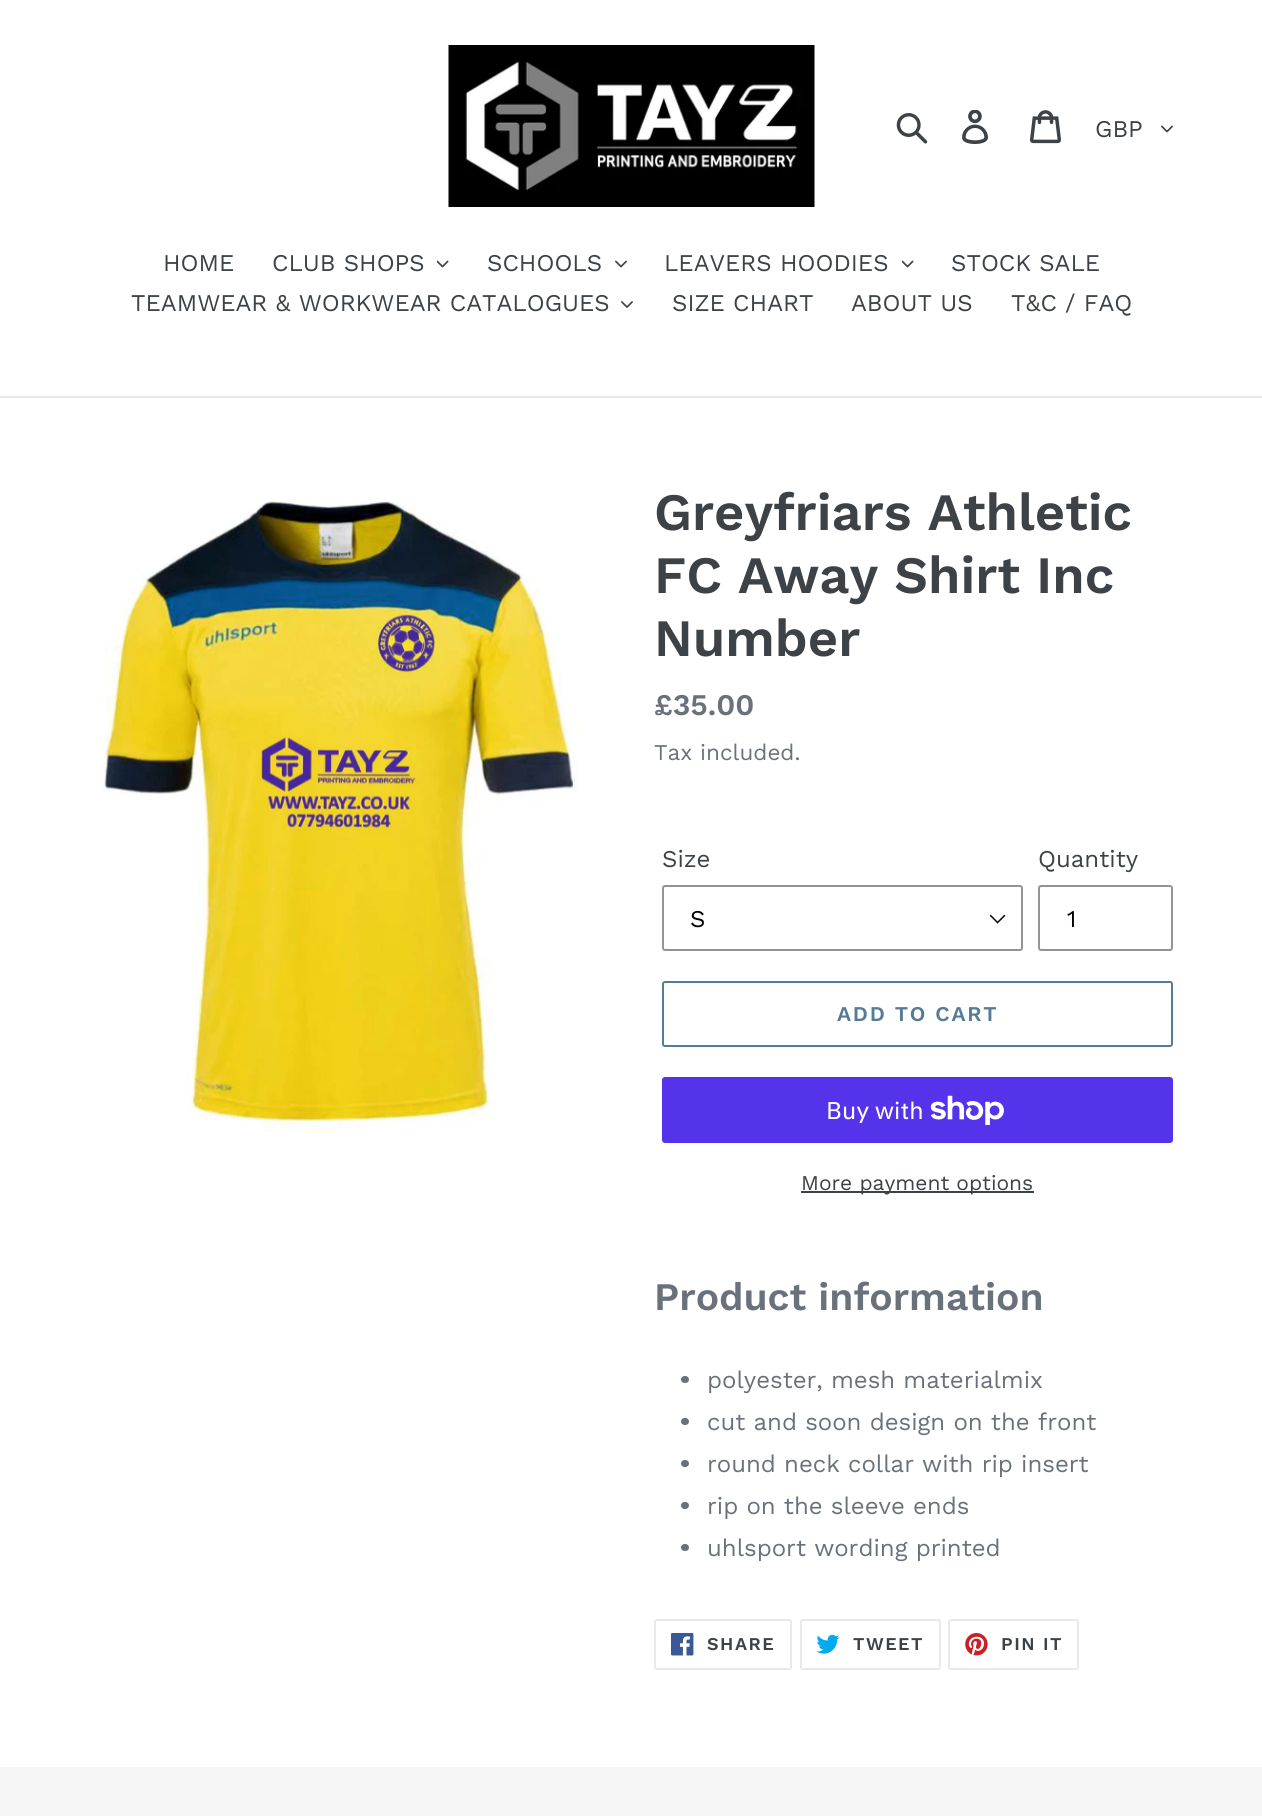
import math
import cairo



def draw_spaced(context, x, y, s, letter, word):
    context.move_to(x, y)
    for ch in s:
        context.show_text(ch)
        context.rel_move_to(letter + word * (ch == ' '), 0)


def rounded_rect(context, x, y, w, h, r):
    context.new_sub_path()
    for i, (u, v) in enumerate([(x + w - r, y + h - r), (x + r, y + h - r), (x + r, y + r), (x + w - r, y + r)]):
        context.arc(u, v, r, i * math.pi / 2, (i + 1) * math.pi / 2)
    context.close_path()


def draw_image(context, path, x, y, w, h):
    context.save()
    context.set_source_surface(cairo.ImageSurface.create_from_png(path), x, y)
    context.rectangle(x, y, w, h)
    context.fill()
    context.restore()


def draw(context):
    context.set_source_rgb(1, 1, 1)
    context.paint()
    draw_image(context, "images/1.png", 448, 45, 367, 162)
    draw_image(context, "images/2.png", 896, 113, 32, 31)
    draw_image(context, "images/3.png", 962, 110, 26, 34)
    draw_image(context, "images/4.png", 1030, 110, 31, 34)
    draw_image(context, "images/5.png", 1161, 125, 12, 8)
    context.set_source_rgb(232 / 255, 233 / 255, 235 / 255)
    context.rectangle(0, 396, 1262, 2)
    context.fill()
    draw_image(context, "images/6.png", 437, 260, 12, 8)
    draw_image(context, "images/5.png", 615, 260, 12, 8)
    draw_image(context, "images/6.png", 902, 260, 12, 8)
    draw_image(context, "images/7.png", 621, 301, 12, 7)
    draw_image(context, "images/8.png", 103, 501, 476, 633)
    draw_image(context, "images/9.png", 989, 914, 17, 10)
    rounded_rect(context, 663, 886, 359, 64, 2)
    context.set_source_rgb(148 / 255, 148 / 255, 148 / 255)
    context.stroke()
    rounded_rect(context, 1039, 886, 133, 64, 2)
    context.stroke()
    rounded_rect(context, 663, 982, 509, 64, 2)
    context.set_source_rgb(85 / 255, 123 / 255, 151 / 255)
    context.stroke()
    context.set_source_rgb(84 / 255, 51 / 255, 235 / 255)
    rounded_rect(context, 662, 1077, 511, 66, 3)
    context.fill()
    draw_image(context, "images/10.png", 930, 1095, 74, 30)
    context.set_source_rgb(61 / 255, 66 / 255, 70 / 255)
    context.rectangle(801, 1191, 233, 2)
    context.fill()
    context.set_source_rgb(105 / 255, 114 / 255, 123 / 255)
    rounded_rect(context, 681, 1376, 8, 7, 3.5)
    context.fill()
    rounded_rect(context, 681, 1418, 8, 7, 3.5)
    context.fill()
    rounded_rect(context, 681, 1460, 8, 7, 3.5)
    context.fill()
    rounded_rect(context, 681, 1502, 8, 7, 3.5)
    context.fill()
    rounded_rect(context, 681, 1544, 8, 7, 3.5)
    context.fill()
    rounded_rect(context, 655, 1620, 136, 49, 2)
    context.set_source_rgb(232 / 255, 233 / 255, 235 / 255)
    context.stroke()
    draw_image(context, "images/11.png", 671, 1633, 23, 23)
    rounded_rect(context, 801, 1620, 139, 49, 2)
    context.stroke()
    draw_image(context, "images/12.png", 816, 1634, 24, 20)
    rounded_rect(context, 949, 1620, 129, 49, 2)
    context.stroke()
    draw_image(context, "images/13.png", 965, 1633, 23, 23)
    context.set_source_rgb(245 / 255, 245 / 255, 245 / 255)
    context.rectangle(0, 1767, 1262, 49)
    context.fill()
    context.select_font_face("Work Sans")
    context.set_font_size(24)
    context.set_source_rgb(61 / 255, 66 / 255, 70 / 255)
    context.move_to(1095, 137)
    context.show_text("GBP")
    context.move_to(163, 271)
    context.show_text("HOME")
    context.move_to(272, 271)
    context.show_text("CLUB SHOPS")
    context.move_to(487, 271)
    context.show_text("SCHOOLS")
    context.move_to(664, 271)
    context.show_text("LEAVERS HOODIES")
    context.move_to(951, 271)
    context.show_text("STOCK SALE")
    context.move_to(131, 311)
    context.show_text("TEAMWEAR & WORKWEAR CATALOGUES")
    context.move_to(672, 311)
    context.show_text("SIZE CHART")
    context.move_to(851, 311)
    context.show_text("ABOUT US")
    context.move_to(1011, 311)
    context.show_text("T&C / FAQ")
    context.select_font_face("Work Sans SemiBold")
    context.set_font_size(52.5)
    context.move_to(654, 530)
    context.show_text("Greyfriars Athletic")
    context.move_to(654, 593)
    context.show_text("FC Away Shirt Inc")
    context.move_to(654, 656)
    context.show_text("Number")
    context.set_font_size(30)
    context.set_source_rgb(105 / 255, 114 / 255, 123 / 255)
    context.move_to(654, 715)
    context.show_text("£35.00")
    context.select_font_face("Work Sans")
    context.set_font_size(22.5)
    context.move_to(654, 760)
    context.show_text("Tax included.")
    context.set_font_size(24)
    context.set_source_rgb(61 / 255, 66 / 255, 70 / 255)
    context.move_to(662, 867)
    context.show_text("Size")
    context.set_source_rgb(0, 0, 0)
    context.move_to(690, 927)
    context.show_text("S")
    context.set_source_rgb(61 / 255, 66 / 255, 70 / 255)
    context.move_to(1038, 867)
    context.show_text("Quantity")
    context.set_source_rgb(0, 0, 0)
    context.move_to(1067, 927)
    context.show_text("1")
    context.select_font_face("Work Sans SemiBold")
    context.set_font_size(21)
    context.set_source_rgb(85 / 255, 123 / 255, 151 / 255)
    draw_spaced(context, 837, 1021, "ADD TO CART", 1.75, 0)
    context.select_font_face("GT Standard")
    context.set_font_size(24)
    context.set_source_rgb(1, 1, 1)
    context.move_to(826, 1119)
    context.show_text("Buy with")
    context.select_font_face("Work Sans")
    context.set_font_size(21)
    context.set_source_rgb(61 / 255, 66 / 255, 70 / 255)
    context.move_to(801, 1190)
    context.show_text("More payment options")
    context.select_font_face("Work Sans SemiBold")
    context.set_font_size(39)
    context.set_source_rgb(105 / 255, 114 / 255, 123 / 255)
    context.move_to(654, 1310)
    context.show_text("Product information")
    context.select_font_face("Work Sans")
    context.set_font_size(24)
    context.move_to(707, 1388)
    context.show_text("polyester, mesh materialmix")
    context.move_to(707, 1430)
    context.show_text("cut and soon design on the front")
    context.move_to(707, 1472)
    context.show_text("round neck collar with rip insert")
    context.move_to(707, 1514)
    context.show_text("rip on the sleeve ends")
    context.move_to(707, 1556)
    context.show_text("uhlsport wording printed")
    context.select_font_face("Work Sans SemiBold")
    context.set_font_size(18)
    context.set_source_rgb(61 / 255, 66 / 255, 70 / 255)
    draw_spaced(context, 707, 1650, "SHARE", 1.5, 0)
    draw_spaced(context, 853, 1650, "TWEET", 1.5, 0)
    draw_spaced(context, 1001, 1650, "PIN IT", 1.5, 0)


surface = cairo.ImageSurface(cairo.Format.RGB24, 1262, 1816)
context = cairo.Context(surface)
options = cairo.FontOptions()
options.set_hint_metrics(cairo.HintMetrics.OFF)
options.set_hint_style(cairo.HintStyle.NONE)
context.set_font_options(options)
context.set_miter_limit(4)
draw(context)
surface.write_to_png("out.png")
